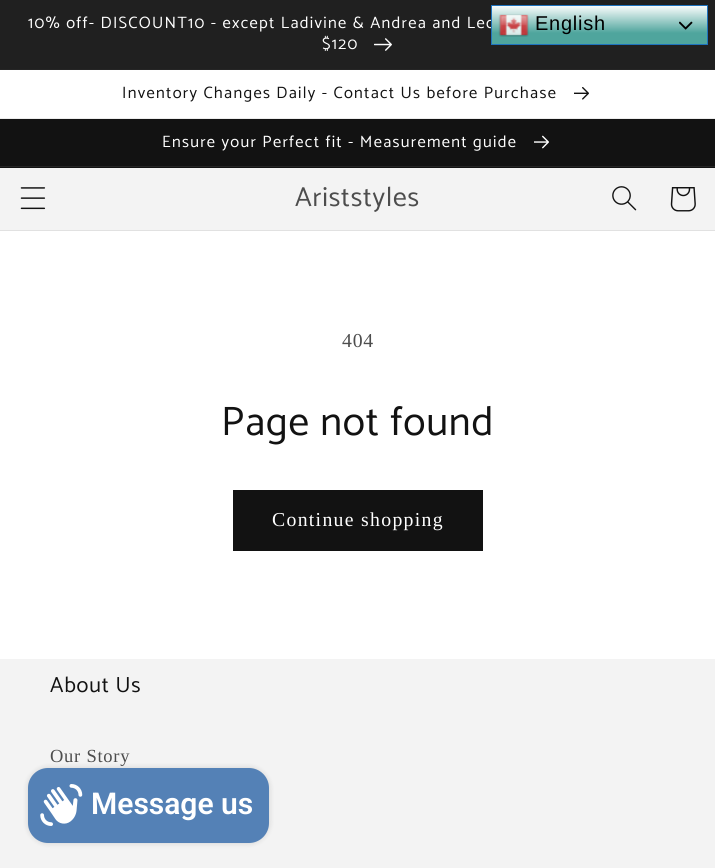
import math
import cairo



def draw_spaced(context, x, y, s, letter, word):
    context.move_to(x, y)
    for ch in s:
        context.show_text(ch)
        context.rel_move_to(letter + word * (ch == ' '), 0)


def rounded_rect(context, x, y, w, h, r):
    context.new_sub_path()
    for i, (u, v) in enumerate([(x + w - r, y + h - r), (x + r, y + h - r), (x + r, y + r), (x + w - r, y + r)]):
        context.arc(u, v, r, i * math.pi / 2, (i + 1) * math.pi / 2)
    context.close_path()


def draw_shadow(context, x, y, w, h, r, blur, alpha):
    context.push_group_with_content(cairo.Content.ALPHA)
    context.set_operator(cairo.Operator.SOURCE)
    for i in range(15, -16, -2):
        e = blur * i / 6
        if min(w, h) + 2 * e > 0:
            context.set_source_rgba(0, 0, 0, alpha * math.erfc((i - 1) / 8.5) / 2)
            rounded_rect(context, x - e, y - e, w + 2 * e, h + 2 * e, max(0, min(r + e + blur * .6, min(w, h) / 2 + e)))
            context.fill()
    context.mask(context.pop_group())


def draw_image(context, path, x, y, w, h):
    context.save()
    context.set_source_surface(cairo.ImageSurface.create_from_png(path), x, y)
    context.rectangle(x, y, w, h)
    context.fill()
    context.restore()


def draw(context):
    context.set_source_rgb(1, 1, 1)
    context.paint()
    context.set_source_rgb(37 / 255, 37 / 255, 37 / 255)
    context.rectangle(0, 69, 715, 1)
    context.fill()
    context.set_source_rgb(32 / 255, 32 / 255, 32 / 255)
    context.rectangle(0, 0, 715, 69)
    context.fill()
    draw_image(context, "images/1.png", 374, 38, 18, 13)
    context.set_source_rgb(236 / 255, 236 / 255, 236 / 255)
    context.rectangle(0, 118, 715, 1)
    context.fill()
    draw_image(context, "images/2.png", 574, 87, 15, 13)
    context.set_source_rgb(18 / 255, 18 / 255, 18 / 255)
    context.rectangle(0, 119, 715, 49)
    context.fill()
    context.set_source_rgb(37 / 255, 37 / 255, 37 / 255)
    context.rectangle(0, 166, 715, 1)
    context.fill()
    draw_image(context, "images/3.png", 534, 135, 15, 14)
    context.set_source_rgb(243 / 255, 243 / 255, 243 / 255)
    context.rectangle(0, 168, 715, 62)
    context.fill()
    context.set_source_rgb(225 / 255, 225 / 255, 225 / 255)
    context.rectangle(0, 230, 715, 1)
    context.fill()
    draw_image(context, "images/6.png", 20, 187, 26, 23)
    draw_image(context, "images/7.png", 612, 186, 25, 25)
    draw_image(context, "images/8.png", 670, 187, 26, 25)
    context.set_source_rgb(18 / 255, 18 / 255, 18 / 255)
    context.rectangle(233, 490, 250, 61)
    context.fill()
    context.set_source_rgb(243 / 255, 243 / 255, 243 / 255)
    context.rectangle(0, 659, 715, 209)
    context.fill()
    context.set_source_rgb(0, 0, 0)
    draw_shadow(context, 28, 768, 241, 75, 20, 3, 0.15)
    context.set_source_rgb(84 / 255, 129 / 255, 182 / 255)
    rounded_rect(context, 28, 768, 241, 75, 20)
    context.fill()
    draw_image(context, "images/9.png", 40, 784, 43, 42)
    context.select_font_face("Catamaran")
    context.set_font_size(16.5)
    context.set_source_rgb(1, 1, 1)
    draw_spaced(context, 28, 28, "10% off- DISCOUNT10 - except Ladivine & Andrea and Leo", 1.3, 0)
    draw_spaced(context, 322, 49, "$120", 1.3, 0)
    context.set_source_rgb(18 / 255, 18 / 255, 18 / 255)
    draw_spaced(context, 122, 98, "Inventory Changes Daily - Contact Us before Purchase", 1.3, 0)
    context.set_source_rgb(1, 1, 1)
    draw_spaced(context, 162, 147, "Ensure your Perfect fit - Measurement guide", 1.3, 0)
    gradient = cairo.LinearGradient(599, 5, 599, 45)
    gradient.add_color_stop_rgba(0, 1, 1, 1, 1)
    gradient.add_color_stop_rgba(0.7, 79 / 255, 165 / 255, 157 / 255, 1)
    context.set_source(gradient)
    context.rectangle(492, 6, 215, 38)
    context.fill()
    context.rectangle(491.5, 5.5, 216, 39)
    context.set_source_rgb(30 / 255, 115 / 255, 190 / 255)
    context.set_line_width(1)
    context.stroke()
    draw_image(context, "images/4.png", 498, 14, 31, 23)
    context.select_font_face("Liberation Sans")
    context.set_font_size(20)
    context.set_source_rgb(0, 0, 0)
    draw_spaced(context, 535, 30, "English", 0.75, 0)
    draw_image(context, "images/5.png", 679, 21, 14, 9)
    context.select_font_face("Catamaran")
    context.set_font_size(27.5)
    context.set_source_rgb(77 / 255, 77 / 255, 77 / 255)
    draw_spaced(context, 295, 206, "Ariststyles", 0.8, 0)
    context.select_font_face("Liberation Serif")
    context.set_font_size(19.75)
    draw_spaced(context, 342, 347, "404", 0.75, 0)
    context.select_font_face("Catamaran")
    context.set_font_size(41.25)
    context.set_source_rgb(18 / 255, 18 / 255, 18 / 255)
    draw_spaced(context, 221, 435, "Page not found", 0.8, 0)
    context.select_font_face("Liberation Serif")
    context.set_font_size(19.75)
    context.set_source_rgb(1, 1, 1)
    draw_spaced(context, 272, 526, "Continue shopping", 1.3, 0)
    context.select_font_face("Catamaran")
    context.set_font_size(22)
    context.set_source_rgb(18 / 255, 18 / 255, 18 / 255)
    draw_spaced(context, 50, 692, "About Us", 0.8, 0)
    context.select_font_face("Liberation Serif")
    context.set_font_size(18.5)
    context.set_source_rgb(77 / 255, 77 / 255, 77 / 255)
    draw_spaced(context, 50, 762, "Our Story", 0.75, 0)
    context.select_font_face("Roboto SemiBold")
    context.set_font_size(30)
    context.set_source_rgb(1, 1, 1)
    context.move_to(91, 814)
    context.show_text("Message us")


surface = cairo.ImageSurface(cairo.Format.RGB24, 715, 868)
context = cairo.Context(surface)
options = cairo.FontOptions()
options.set_hint_metrics(cairo.HintMetrics.OFF)
options.set_hint_style(cairo.HintStyle.NONE)
context.set_font_options(options)
context.set_miter_limit(4)
draw(context)
surface.write_to_png("out.png")
